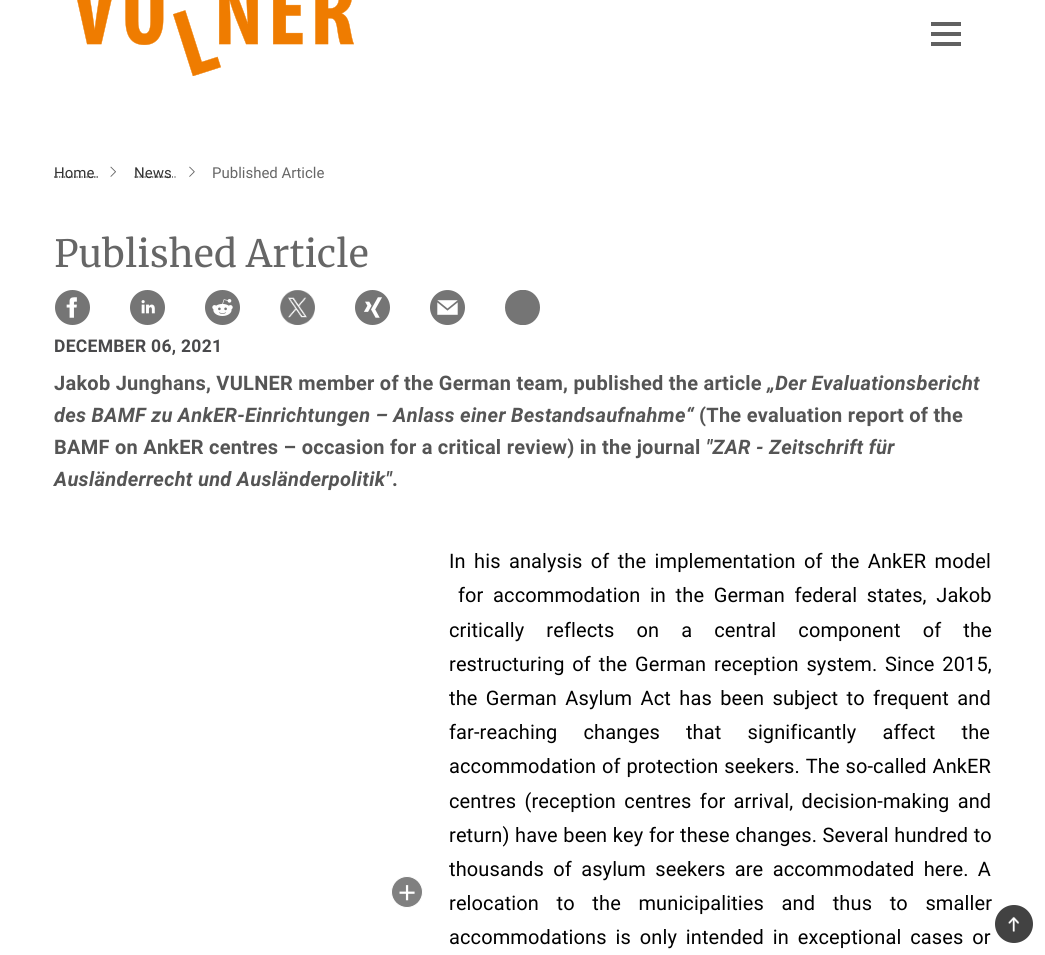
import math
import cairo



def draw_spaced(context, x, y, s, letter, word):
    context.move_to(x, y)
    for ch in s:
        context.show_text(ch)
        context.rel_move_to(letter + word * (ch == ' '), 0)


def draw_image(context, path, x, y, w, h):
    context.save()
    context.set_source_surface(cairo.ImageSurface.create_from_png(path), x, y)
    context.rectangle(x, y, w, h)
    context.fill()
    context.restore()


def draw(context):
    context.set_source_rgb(1, 1, 1)
    context.paint()
    draw_image(context, "images/1.png", 77, 0, 277, 76)
    context.set_source_rgb(97 / 255, 97 / 255, 97 / 255)
    context.rectangle(931, 22, 30, 4)
    context.fill()
    context.rectangle(931, 32, 30, 4)
    context.fill()
    context.rectangle(931, 42, 30, 4)
    context.fill()
    context.new_path()
    context.move_to(54, 177)
    context.line_to(94, 177)
    context.set_source_rgb(51 / 255, 51 / 255, 51 / 255)
    context.set_line_width(1.2)
    context.set_dash([1.25, 1.25])
    context.stroke()
    context.new_path()
    context.move_to(94, 177)
    context.line_to(95.5, 177)
    context.move_to(96.5, 177)
    context.line_to(98, 177)
    context.set_dash([])
    context.stroke()
    draw_image(context, "images/2.png", 110, 166, 6, 11)
    context.new_path()
    context.move_to(134.5, 177)
    context.line_to(172, 177)
    context.set_dash([1.25, 1.25])
    context.stroke()
    context.new_path()
    context.move_to(172, 177)
    context.line_to(173, 177)
    context.move_to(174.5, 177)
    context.line_to(175.5, 177)
    context.set_dash([])
    context.stroke()
    draw_image(context, "images/3.png", 189, 166, 6, 11)
    draw_image(context, "images/4.png", 55, 290, 35, 35)
    draw_image(context, "images/5.png", 130, 290, 35, 35)
    draw_image(context, "images/6.png", 205, 290, 35, 35)
    draw_image(context, "images/7.png", 280, 290, 35, 35)
    draw_image(context, "images/8.png", 355, 290, 35, 35)
    draw_image(context, "images/9.png", 430, 290, 35, 35)
    context.save()
    context.rectangle(505, 290, 35, 35)
    context.clip()
    context.set_source_rgb(117 / 255, 117 / 255, 117 / 255)
    context.new_path()
    context.move_to(540, 307.5)
    context.curve_to(540, 311, 539, 314.5, 537, 317.5)
    context.curve_to(527.5, 332, 505, 324.5, 505, 307.5)
    context.curve_to(505, 290.5, 527.5, 283, 537, 297.5)
    context.curve_to(539, 300.5, 540, 304, 540, 307.5)
    context.close_path()
    context.fill()
    context.restore()
    context.set_source_rgb(128 / 255, 128 / 255, 128 / 255)
    context.arc(407, 892, 15.5, 0, 2 * math.pi)
    context.fill_preserve()
    context.set_source_rgb(1, 1, 1)
    context.set_line_width(1)
    context.stroke()
    context.set_source_rgb(66 / 255, 66 / 255, 66 / 255)
    context.arc(1014, 924, 19, 0, 2 * math.pi)
    context.fill()
    draw_image(context, "images/10.png", 1008, 916, 12, 16)
    context.select_font_face("Roboto")
    context.set_font_size(15)
    context.set_source_rgb(51 / 255, 51 / 255, 51 / 255)
    context.move_to(54, 178)
    context.show_text("Home")
    context.move_to(134, 178)
    context.show_text("News")
    context.set_source_rgb(102 / 255, 102 / 255, 102 / 255)
    context.move_to(212, 178)
    context.show_text("Published Article")
    context.select_font_face("Merriweather")
    context.set_font_size(37.5)
    context.move_to(54, 267)
    context.show_text("Published Article")
    context.select_font_face("Roboto", cairo.FontSlant.NORMAL, cairo.FontWeight.BOLD)
    context.set_font_size(17.5)
    context.set_source_rgb(73 / 255, 73 / 255, 75 / 255)
    draw_spaced(context, 54, 352, "DECEMBER 06, 2021", 0.3, 0)
    context.set_font_size(20)
    context.set_source_rgb(85 / 255, 85 / 255, 85 / 255)
    draw_spaced(context, 54, 390, "Jakob Junghans, VULNER member of the German team, published the article", 0.25, 0)
    context.select_font_face("Roboto", cairo.FontSlant.ITALIC, cairo.FontWeight.BOLD)
    draw_spaced(context, 767, 390, "„Der Evaluationsbericht", 0.25, 0)
    draw_spaced(context, 54, 422, "des BAMF zu AnkER-Einrichtungen – Anlass einer Bestandsaufnahme“", 0.25, 0)
    context.select_font_face("Roboto", cairo.FontSlant.NORMAL, cairo.FontWeight.BOLD)
    draw_spaced(context, 699, 422, "(The evaluation report of the", 0.25, 0)
    draw_spaced(context, 54, 454, "BAMF on AnkER centres – occasion for a critical review) in the journal", 0.25, 0)
    context.select_font_face("Roboto", cairo.FontSlant.ITALIC, cairo.FontWeight.BOLD)
    draw_spaced(context, 706, 454, "\"ZAR - Zeitschrift für", 0.25, 0)
    draw_spaced(context, 54, 486, "Ausländerrecht und Ausländerpolitik\"", 0.25, 0)
    context.select_font_face("Roboto", cairo.FontSlant.NORMAL, cairo.FontWeight.BOLD)
    draw_spaced(context, 392, 486, ".", 0.25, 0)
    context.select_font_face("Liberation Sans")
    context.set_font_size(31)
    context.set_source_rgb(1, 1, 1)
    context.move_to(398, 903)
    context.show_text("+")
    context.select_font_face("Roboto")
    context.set_font_size(20)
    context.set_source_rgb(0, 0, 0)
    draw_spaced(context, 449, 568, "In his analysis of the implementation of the AnkER model", 0.12, 3.25)
    draw_spaced(context, 458, 602, "for accommodation in the German federal states, Jakob", 0.12, 4.5)
    draw_spaced(context, 449, 637, "critically reflects on a central component of the", 0.12, 17)
    draw_spaced(context, 449, 671, "restructuring of the German reception system. Since 2015,", 0.12, 2.75)
    draw_spaced(context, 449, 705, "the German Asylum Act has been subject to frequent and", 0.12, 3.25)
    draw_spaced(context, 449, 739, "far-reaching changes that significantly affect the", 0.12, 21)
    draw_spaced(context, 449, 773, "accommodation of protection seekers. The so-called AnkER", 0.12, 0.75)
    draw_spaced(context, 449, 808, "centres (reception centres for arrival, decision-making and", 0.12, 3.25)
    draw_spaced(context, 449, 842, "return) have been key for these changes. Several hundred to", 0.12, 0.5)
    draw_spaced(context, 449, 876, "thousands of asylum seekers are accommodated here. A", 0.12, 4.25)
    draw_spaced(context, 449, 910, "relocation to the municipalities and thus to smaller", 0.12, 12.5)
    draw_spaced(context, 449, 944, "accommodations is only intended in exceptional cases or", 0.12, 3.75)


surface = cairo.ImageSurface(cairo.Format.RGB24, 1045, 955)
context = cairo.Context(surface)
options = cairo.FontOptions()
options.set_hint_metrics(cairo.HintMetrics.OFF)
options.set_hint_style(cairo.HintStyle.NONE)
context.set_font_options(options)
context.set_miter_limit(4)
draw(context)
surface.write_to_png("out.png")
